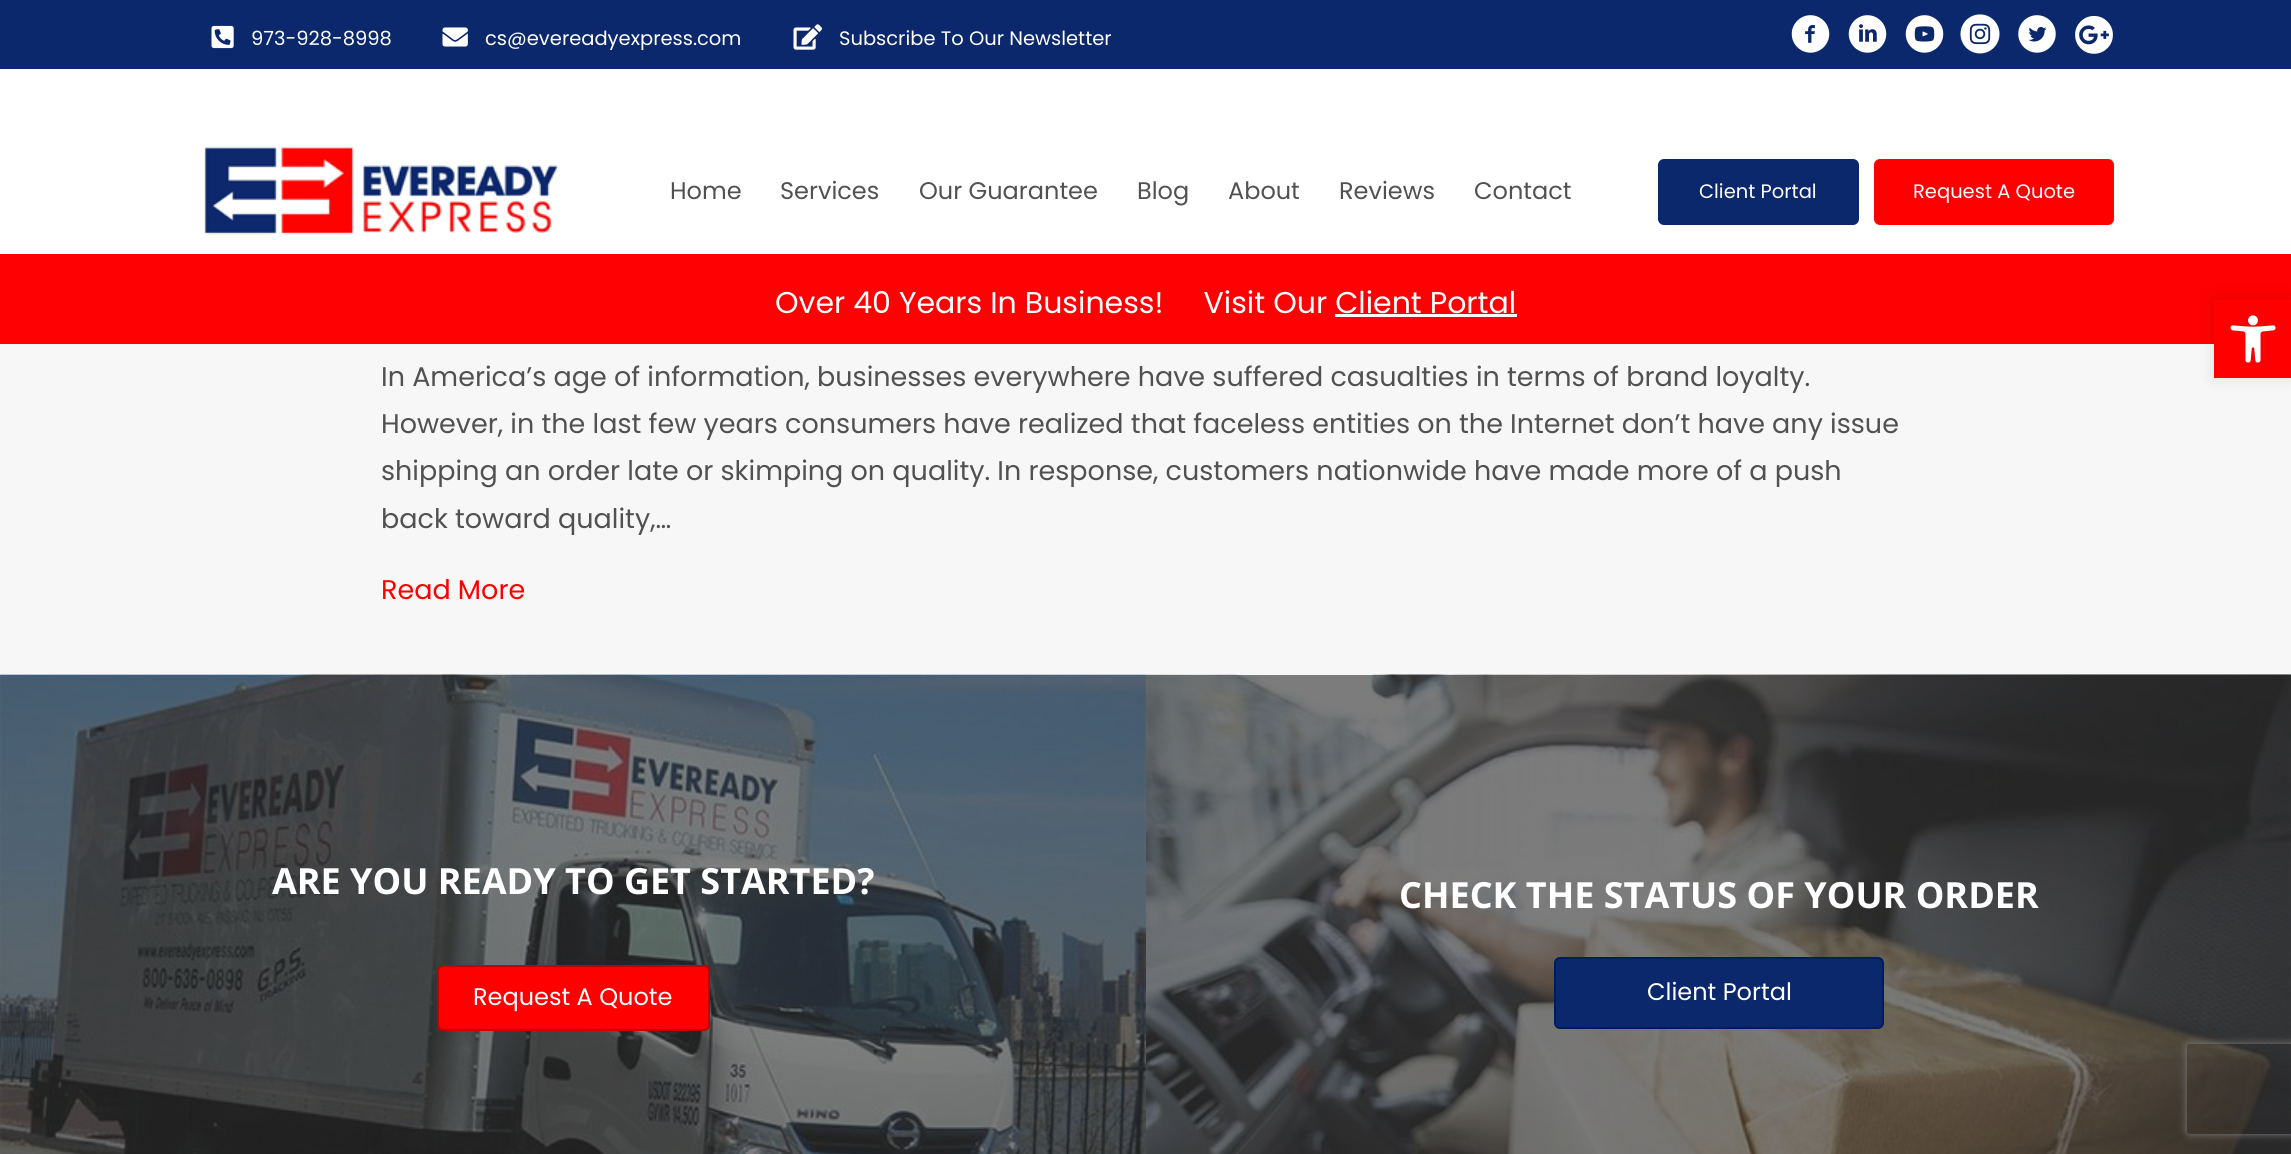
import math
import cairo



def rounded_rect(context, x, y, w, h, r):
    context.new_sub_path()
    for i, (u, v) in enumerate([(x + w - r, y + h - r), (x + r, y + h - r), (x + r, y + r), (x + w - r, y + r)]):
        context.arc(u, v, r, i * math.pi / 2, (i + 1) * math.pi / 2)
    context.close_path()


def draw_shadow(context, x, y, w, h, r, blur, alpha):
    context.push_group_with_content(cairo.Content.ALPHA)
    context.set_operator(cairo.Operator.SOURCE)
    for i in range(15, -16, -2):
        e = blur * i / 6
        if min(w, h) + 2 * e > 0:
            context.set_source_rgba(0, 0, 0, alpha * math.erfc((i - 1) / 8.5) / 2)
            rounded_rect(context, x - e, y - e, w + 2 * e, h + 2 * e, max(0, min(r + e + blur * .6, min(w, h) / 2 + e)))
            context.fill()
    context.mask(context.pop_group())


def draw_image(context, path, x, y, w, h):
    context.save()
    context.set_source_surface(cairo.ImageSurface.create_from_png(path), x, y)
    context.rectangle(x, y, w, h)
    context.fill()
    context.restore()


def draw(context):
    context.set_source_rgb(247 / 255, 247 / 255, 247 / 255)
    context.paint()
    context.set_source_rgb(11 / 255, 40 / 255, 108 / 255)
    context.rectangle(0, 0, 2291, 69)
    context.fill()
    draw_image(context, "images/1.png", 211, 25, 23, 24)
    draw_image(context, "images/2.png", 442, 27, 26, 20)
    draw_image(context, "images/3.png", 793, 24, 29, 26)
    draw_image(context, "images/4.png", 1791, 15, 39, 38)
    draw_image(context, "images/5.png", 1848, 15, 39, 38)
    draw_image(context, "images/6.png", 1905, 15, 39, 38)
    draw_image(context, "images/7.png", 1960, 14, 40, 40)
    draw_image(context, "images/8.png", 2018, 15, 38, 38)
    draw_image(context, "images/9.png", 2075, 16, 38, 38)
    context.set_source_rgb(1, 1, 1)
    context.rectangle(0, 69, 2291, 185)
    context.fill()
    draw_image(context, "images/10.png", 204, 146, 355, 89)
    context.set_source_rgb(11 / 255, 40 / 255, 108 / 255)
    rounded_rect(context, 1659, 160, 199, 64, 5)
    context.fill_preserve()
    context.stroke()
    context.set_source_rgb(254 / 255, 0, 0)
    rounded_rect(context, 1875, 160, 238, 64, 5)
    context.fill_preserve()
    context.set_source_rgb(254 / 255, 1 / 255, 2 / 255)
    context.stroke()
    context.rectangle(0, 254, 2291, 90)
    context.fill()
    context.set_source_rgb(1, 1, 1)
    context.rectangle(1335, 314, 182, 3)
    context.fill()
    draw_image(context, "images/11.png", 0, 674, 1146, 480)
    context.set_source_rgb(254 / 255, 0, 0)
    rounded_rect(context, 438, 966, 271, 64, 5)
    context.fill_preserve()
    context.set_source_rgb(193 / 255, 0, 0)
    context.stroke()
    draw_image(context, "images/12.png", 1146, 674, 1145, 480)
    context.set_source_rgb(11 / 255, 40 / 255, 108 / 255)
    rounded_rect(context, 1555, 958, 328, 70, 5)
    context.fill_preserve()
    context.set_source_rgb(0, 28 / 255, 96 / 255)
    context.stroke()
    context.set_source_rgb(0, 0, 0)
    draw_shadow(context, 2214, 300, 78, 78, 0, 7.5, 0.1)
    context.set_source_rgb(254 / 255, 0, 0)
    context.rectangle(2214, 300, 77, 78)
    context.fill()
    draw_image(context, "images/13.png", 2230, 315, 46, 48)
    context.save()
    context.set_fill_rule(cairo.FillRule.EVEN_ODD)
    context.new_path()
    context.move_to(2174, 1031)
    context.line_to(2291, 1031)
    context.line_to(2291, 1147)
    context.line_to(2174, 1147)
    context.close_path()
    context.move_to(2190, 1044)
    context.line_to(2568, 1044)
    context.curve_to(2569.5, 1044, 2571, 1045.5, 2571, 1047)
    context.line_to(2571, 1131)
    context.curve_to(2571, 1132.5, 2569.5, 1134, 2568, 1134)
    context.line_to(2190, 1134)
    context.curve_to(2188.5, 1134, 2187, 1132.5, 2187, 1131)
    context.line_to(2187, 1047)
    context.curve_to(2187, 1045.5, 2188.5, 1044, 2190, 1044)
    context.close_path()
    context.clip()
    context.set_source_rgb(128 / 255, 128 / 255, 128 / 255)
    draw_shadow(context, 2187, 1044, 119, 90, 3, 4, 1)
    context.restore()
    context.select_font_face("Poppins")
    context.set_font_size(19.5)
    context.set_source_rgb(1, 1, 1)
    context.move_to(251, 45)
    context.show_text("973-928-8998")
    context.move_to(485, 45)
    context.show_text("cs@evereadyexpress.com")
    context.move_to(839, 45)
    context.show_text("Subscribe To Our Newsletter")
    context.set_font_size(24)
    context.set_source_rgb(81 / 255, 81 / 255, 81 / 255)
    context.move_to(670, 199)
    context.show_text("Home")
    context.move_to(780, 199)
    context.show_text("Services")
    context.move_to(919, 199)
    context.show_text("Our Guarantee")
    context.move_to(1137, 199)
    context.show_text("Blog")
    context.move_to(1228, 199)
    context.show_text("About")
    context.move_to(1339, 199)
    context.show_text("Reviews")
    context.move_to(1474, 199)
    context.show_text("Contact")
    context.set_font_size(19.5)
    context.set_source_rgb(1, 1, 1)
    context.move_to(1699, 198)
    context.show_text("Client Portal")
    context.move_to(1913, 198)
    context.show_text("Request A Quote")
    context.set_font_size(30)
    context.move_to(775, 313)
    context.show_text("Over 40 Years In Business!     Visit Our Client Portal")
    context.set_font_size(27)
    context.set_source_rgb(81 / 255, 81 / 255, 81 / 255)
    context.move_to(381, 386)
    context.show_text("In America’s age of information, businesses everywhere have suffered casualties in terms of brand loyalty.")
    context.move_to(381, 433)
    context.show_text("However, in the last few years consumers have realized that faceless entities on the Internet don’t have any issue")
    context.move_to(381, 480)
    context.show_text("shipping an order late or skimping on quality. In response, customers nationwide have made more of a push")
    context.move_to(381, 528)
    context.show_text("back toward quality,…")
    context.set_source_rgb(254 / 255, 0, 0)
    context.move_to(381, 599)
    context.show_text("Read More")
    context.select_font_face("Open Sans", cairo.FontSlant.NORMAL, cairo.FontWeight.BOLD)
    context.set_font_size(36)
    context.set_source_rgb(1, 1, 1)
    context.move_to(272, 894)
    context.show_text("ARE YOU READY TO GET STARTED?")
    context.select_font_face("Poppins")
    context.set_font_size(24)
    context.move_to(473, 1005)
    context.show_text("Request A Quote")
    context.select_font_face("Open Sans", cairo.FontSlant.NORMAL, cairo.FontWeight.BOLD)
    context.set_font_size(36)
    context.move_to(1399, 908)
    context.show_text("CHECK THE STATUS OF YOUR ORDER")
    context.select_font_face("Poppins")
    context.set_font_size(24)
    context.move_to(1647, 1000)
    context.show_text("Client Portal")


surface = cairo.ImageSurface(cairo.Format.RGB24, 2291, 1154)
context = cairo.Context(surface)
options = cairo.FontOptions()
options.set_hint_metrics(cairo.HintMetrics.OFF)
options.set_hint_style(cairo.HintStyle.NONE)
context.set_font_options(options)
context.set_miter_limit(4)
draw(context)
surface.write_to_png("out.png")
